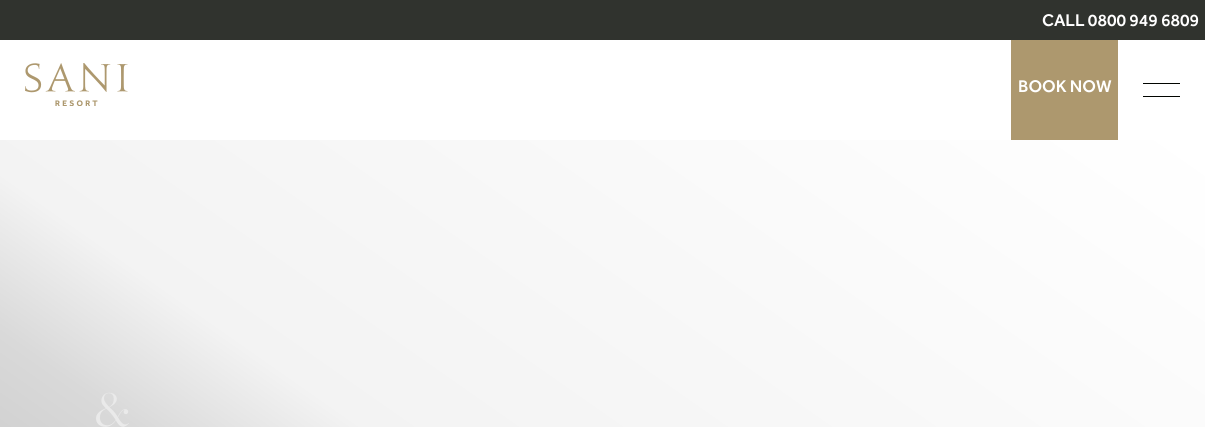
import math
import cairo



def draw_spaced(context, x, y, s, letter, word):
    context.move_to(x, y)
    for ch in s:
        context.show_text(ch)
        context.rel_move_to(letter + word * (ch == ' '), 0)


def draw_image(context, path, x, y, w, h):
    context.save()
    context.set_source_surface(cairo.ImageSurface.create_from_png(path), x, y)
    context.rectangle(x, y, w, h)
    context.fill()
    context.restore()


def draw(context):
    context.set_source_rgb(1, 1, 1)
    context.paint()
    context.set_source_rgb(48 / 255, 51 / 255, 46 / 255)
    context.rectangle(0, 0, 1205, 40)
    context.fill()
    draw_image(context, "images/1.png", 25, 63, 103, 43)
    context.set_source_rgb(173 / 255, 152 / 255, 110 / 255)
    context.rectangle(1011, 40, 107, 100)
    context.fill()
    context.set_source_rgb(1 / 255, 4 / 255, 0)
    context.rectangle(1143, 83, 37, 1)
    context.fill()
    context.rectangle(1143, 96, 37, 1)
    context.fill()
    gradient = cairo.LinearGradient(228, 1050, 977, -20)
    gradient.add_color_stop_rgba(0.05, 243 / 255, 243 / 255, 243 / 255, 1)
    gradient.add_color_stop_rgba(0.15, 217 / 255, 217 / 255, 217 / 255, 1)
    gradient.add_color_stop_rgba(0.25, 205 / 255, 205 / 255, 205 / 255, 1)
    gradient.add_color_stop_rgba(0.35, 217 / 255, 217 / 255, 217 / 255, 1)
    gradient.add_color_stop_rgba(0.45, 243 / 255, 243 / 255, 243 / 255, 1)
    gradient.add_color_stop_rgba(1, 1, 1, 1, 1)
    context.set_source(gradient)
    context.rectangle(0, 140, 1205, 287)
    context.fill()
    context.select_font_face("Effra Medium")
    context.set_font_size(17.5)
    context.set_source_rgb(1, 1, 1)
    context.move_to(1042, 26)
    context.show_text("CALL 0800 949 6809")
    context.move_to(1018, 92)
    context.show_text("BOOK NOW")
    context.select_font_face("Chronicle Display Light")
    context.set_font_size(50)
    context.set_source_rgb(234 / 255, 234 / 255, 234 / 255)
    draw_spaced(context, 93, 426, "&", -1, 0)


surface = cairo.ImageSurface(cairo.Format.RGB24, 1205, 427)
context = cairo.Context(surface)
options = cairo.FontOptions()
options.set_hint_metrics(cairo.HintMetrics.OFF)
options.set_hint_style(cairo.HintStyle.NONE)
context.set_font_options(options)
context.set_miter_limit(4)
draw(context)
surface.write_to_png("out.png")
